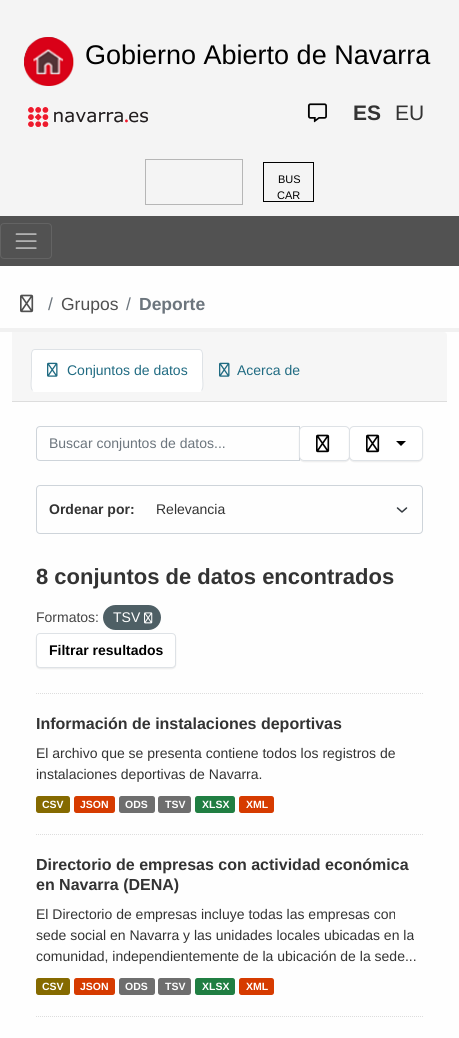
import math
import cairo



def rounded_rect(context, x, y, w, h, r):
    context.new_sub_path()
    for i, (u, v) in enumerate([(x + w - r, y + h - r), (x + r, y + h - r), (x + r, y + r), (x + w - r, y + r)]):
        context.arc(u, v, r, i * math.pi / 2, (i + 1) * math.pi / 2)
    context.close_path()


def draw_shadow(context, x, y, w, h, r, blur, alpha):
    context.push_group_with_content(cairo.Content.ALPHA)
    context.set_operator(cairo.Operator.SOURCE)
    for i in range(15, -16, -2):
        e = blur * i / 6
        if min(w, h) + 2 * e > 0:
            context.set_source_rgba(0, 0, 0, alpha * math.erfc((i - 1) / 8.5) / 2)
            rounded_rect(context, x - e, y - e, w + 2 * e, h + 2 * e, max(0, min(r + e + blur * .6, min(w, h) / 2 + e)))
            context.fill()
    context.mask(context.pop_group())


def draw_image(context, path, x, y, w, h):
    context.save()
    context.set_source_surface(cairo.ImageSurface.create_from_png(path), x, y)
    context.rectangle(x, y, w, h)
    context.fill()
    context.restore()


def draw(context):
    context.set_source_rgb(244 / 255, 244 / 255, 244 / 255)
    context.paint()
    draw_image(context, "images/1.png", 24, 37, 50, 49)
    draw_image(context, "images/2.png", 28, 107, 120, 20)
    draw_image(context, "images/3.png", 307, 103, 20, 20)
    context.rectangle(145.5, 159.5, 97, 45)
    context.set_source_rgb(182 / 255, 182 / 255, 182 / 255)
    context.set_line_width(1)
    context.stroke()
    context.rectangle(263.5, 162.5, 50, 39)
    context.set_source_rgb(0, 0, 0)
    context.stroke()
    context.set_source_rgb(82 / 255, 82 / 255, 82 / 255)
    context.rectangle(0, 216, 459, 50)
    context.fill()
    rounded_rect(context, 0.5, 223.5, 51, 35, 3.5)
    context.set_source_rgb(99 / 255, 99 / 255, 99 / 255)
    context.stroke()
    draw_image(context, "images/4.png", 15, 233, 22, 16)
    context.set_source_rgb(254 / 255, 254 / 255, 254 / 255)
    context.rectangle(0, 266, 459, 772)
    context.fill()
    draw_image(context, "images/5.png", 20, 294, 14, 19)
    context.rectangle(-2, 330, 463, 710)
    context.set_source_rgb(241 / 255, 241 / 255, 241 / 255)
    context.set_line_width(4)
    context.stroke()
    context.set_source_rgb(246 / 255, 246 / 255, 246 / 255)
    context.new_path()
    context.move_to(12, 332)
    context.line_to(444, 332)
    context.curve_to(445.5, 332, 447, 333.5, 447, 335)
    context.line_to(447, 402)
    context.line_to(12, 402)
    context.close_path()
    context.fill()
    context.set_source_rgb(221 / 255, 221 / 255, 221 / 255)
    context.rectangle(12, 401, 435, 1)
    context.fill()
    context.set_source_rgb(1, 1, 1)
    rounded_rect(context, 31, 349, 172, 43, 4)
    context.fill()
    context.new_path()
    context.move_to(32.5, 390.5)
    context.curve_to(30, 388, 31.5, 379, 31.5, 376.5)
    context.line_to(31.5, 359)
    context.curve_to(31.5, 356, 30.5, 349.5, 35, 349.5)
    context.line_to(199, 349.5)
    context.curve_to(203.5, 349.5, 202.5, 356, 202.5, 359)
    context.line_to(202.5, 376.5)
    context.curve_to(202.5, 379, 204, 388, 201.5, 390.5)
    context.set_source_rgb(222 / 255, 226 / 255, 230 / 255)
    context.set_line_width(1)
    context.stroke()
    draw_image(context, "images/6.png", 47, 362, 11, 15)
    draw_image(context, "images/7.png", 219, 362, 11, 15)
    context.new_path()
    context.move_to(36, 693.5)
    context.line_to(423, 693.5)
    context.set_source_rgb(221 / 255, 221 / 255, 221 / 255)
    context.set_dash([1, 1])
    context.stroke()
    context.new_path()
    context.move_to(40, 426.5)
    context.line_to(299.5, 426.5)
    context.line_to(299.5, 460.5)
    context.line_to(40, 460.5)
    context.curve_to(38, 460.5, 36.5, 459, 36.5, 457)
    context.line_to(36.5, 430)
    context.curve_to(36.5, 428, 38, 426.5, 40, 426.5)
    context.close_path()
    context.set_source_rgb(206 / 255, 212 / 255, 218 / 255)
    context.set_dash([])
    context.stroke()
    context.set_source_rgb(0, 0, 0)
    draw_shadow(context, 299, 427, 51, 35, 5, 0.5, 0.07)
    context.set_source_rgb(1, 1, 1)
    rounded_rect(context, 299.5, 426.5, 50, 34, 4.5)
    context.fill_preserve()
    context.set_source_rgb(222 / 255, 226 / 255, 230 / 255)
    context.stroke()
    draw_image(context, "images/8.png", 316, 434, 14, 19)
    context.set_source_rgb(0, 0, 0)
    draw_shadow(context, 349, 427, 74, 35, 5, 0.5, 0.07)
    context.set_source_rgb(1, 1, 1)
    rounded_rect(context, 349.5, 426.5, 73, 34, 4.5)
    context.fill_preserve()
    context.set_source_rgb(222 / 255, 226 / 255, 230 / 255)
    context.stroke()
    draw_image(context, "images/8.png", 366, 434, 14, 19)
    context.set_source_rgb(0, 0, 0)
    context.new_path()
    context.move_to(396, 441)
    context.line_to(406, 441)
    context.line_to(401, 446)
    context.close_path()
    context.fill()
    context.new_path()
    context.move_to(397.5, 508)
    context.line_to(402, 512)
    context.line_to(406.5, 508)
    context.set_source_rgb(52 / 255, 58 / 255, 64 / 255)
    context.set_line_width(1.5)
    context.set_line_cap(cairo.LineCap.ROUND)
    context.set_line_join(cairo.LineJoin.ROUND)
    context.stroke()
    rounded_rect(context, 36.5, 485.5, 386, 48, 3.5)
    context.set_source_rgb(206 / 255, 212 / 255, 218 / 255)
    context.set_line_width(1)
    context.set_line_cap(cairo.LineCap.BUTT)
    context.set_line_join(cairo.LineJoin.MITER)
    context.stroke()
    context.set_source_rgb(78 / 255, 95 / 255, 101 / 255)
    rounded_rect(context, 103, 605, 58, 25, 12.5)
    context.fill()
    draw_image(context, "images/9.png", 144, 612, 9, 12)
    context.set_source_rgb(0, 0, 0)
    draw_shadow(context, 36, 634, 140, 35, 4, 0.5, 0.07)
    context.set_source_rgb(1, 1, 1)
    rounded_rect(context, 36.5, 633.5, 139, 34, 3.5)
    context.fill_preserve()
    context.set_source_rgb(222 / 255, 226 / 255, 230 / 255)
    context.stroke()
    context.new_path()
    context.move_to(36, 834.5)
    context.line_to(423, 834.5)
    context.set_source_rgb(221 / 255, 221 / 255, 221 / 255)
    context.set_dash([1, 1])
    context.stroke()
    context.set_source_rgb(133 / 255, 106 / 255, 0)
    rounded_rect(context, 36, 796, 34, 17, 2.5)
    context.fill()
    context.set_source_rgb(214 / 255, 59 / 255, 0)
    rounded_rect(context, 74, 796, 41, 17, 2.5)
    context.fill()
    context.set_source_rgb(110 / 255, 110 / 255, 110 / 255)
    rounded_rect(context, 119, 796, 36, 17, 2.5)
    context.fill()
    rounded_rect(context, 158, 796, 33, 17, 2.5)
    context.fill()
    context.set_source_rgb(32 / 255, 126 / 255, 66 / 255)
    rounded_rect(context, 195, 796, 40, 17, 2.5)
    context.fill()
    context.set_source_rgb(214 / 255, 59 / 255, 0)
    rounded_rect(context, 239, 796, 35, 17, 2.5)
    context.fill()
    context.new_path()
    context.move_to(36, 1016.5)
    context.line_to(423, 1016.5)
    context.set_source_rgb(221 / 255, 221 / 255, 221 / 255)
    context.stroke()
    context.set_source_rgb(133 / 255, 106 / 255, 0)
    rounded_rect(context, 36, 978, 34, 17, 2.5)
    context.fill()
    context.set_source_rgb(214 / 255, 59 / 255, 0)
    rounded_rect(context, 74, 978, 41, 17, 2.5)
    context.fill()
    context.set_source_rgb(110 / 255, 110 / 255, 110 / 255)
    rounded_rect(context, 119, 978, 36, 17, 2.5)
    context.fill()
    rounded_rect(context, 158, 978, 33, 17, 2.5)
    context.fill()
    context.set_source_rgb(32 / 255, 126 / 255, 66 / 255)
    rounded_rect(context, 195, 978, 40, 17, 2.5)
    context.fill()
    context.set_source_rgb(214 / 255, 59 / 255, 0)
    rounded_rect(context, 239, 978, 35, 17, 2.5)
    context.fill()
    context.select_font_face("Liberation Sans")
    context.set_font_size(27)
    context.set_source_rgb(0, 0, 0)
    context.move_to(85, 64)
    context.show_text("Gobierno Abierto de Navarra")
    context.select_font_face("Liberation Sans", cairo.FontSlant.NORMAL, cairo.FontWeight.BOLD)
    context.set_font_size(21)
    context.set_source_rgb(51 / 255, 51 / 255, 51 / 255)
    context.move_to(353, 120)
    context.show_text("ES")
    context.select_font_face("Liberation Sans")
    context.move_to(395, 120)
    context.show_text("EU")
    context.set_font_size(11)
    context.set_source_rgb(0, 0, 0)
    context.move_to(278, 183)
    context.show_text("BUS")
    context.move_to(277, 199)
    context.show_text("CAR")
    context.set_font_size(17.5)
    context.set_source_rgb(108 / 255, 117 / 255, 125 / 255)
    context.move_to(48, 310)
    context.show_text("/")
    context.set_source_rgb(80 / 255, 80 / 255, 80 / 255)
    context.move_to(61, 310)
    context.show_text("Grupos")
    context.set_source_rgb(108 / 255, 117 / 255, 125 / 255)
    context.move_to(126, 310)
    context.show_text("/")
    context.select_font_face("Liberation Sans", cairo.FontSlant.NORMAL, cairo.FontWeight.BOLD)
    context.move_to(139, 310)
    context.show_text("Deporte")
    context.select_font_face("Liberation Sans")
    context.set_font_size(14)
    context.set_source_rgb(32 / 255, 107 / 255, 130 / 255)
    context.move_to(67, 375)
    context.show_text("Conjuntos de datos")
    context.move_to(237, 375)
    context.show_text("Acerca de")
    context.set_source_rgb(108 / 255, 117 / 255, 125 / 255)
    context.move_to(49, 448)
    context.show_text("Buscar conjuntos de datos...")
    context.select_font_face("Liberation Sans", cairo.FontSlant.NORMAL, cairo.FontWeight.BOLD)
    context.set_source_rgb(51 / 255, 51 / 255, 51 / 255)
    context.move_to(49, 514)
    context.show_text("Ordenar por:")
    context.select_font_face("Liberation Sans")
    context.move_to(156, 514)
    context.show_text("Relevancia")
    context.select_font_face("Liberation Sans", cairo.FontSlant.NORMAL, cairo.FontWeight.BOLD)
    context.set_font_size(22)
    context.move_to(36, 584)
    context.show_text("8 conjuntos de datos encontrados")
    context.select_font_face("Liberation Sans")
    context.set_font_size(14)
    context.set_source_rgb(68 / 255, 68 / 255, 68 / 255)
    context.move_to(36, 622)
    context.show_text("Formatos:")
    context.set_source_rgb(1, 1, 1)
    context.move_to(113, 622)
    context.show_text("TSV")
    context.select_font_face("Liberation Sans", cairo.FontSlant.NORMAL, cairo.FontWeight.BOLD)
    context.set_source_rgb(0, 0, 0)
    context.move_to(49, 655)
    context.show_text("Filtrar resultados")
    context.set_font_size(16)
    context.set_source_rgb(51 / 255, 51 / 255, 51 / 255)
    context.move_to(36, 729)
    context.show_text("Información de instalaciones deportivas")
    context.select_font_face("Liberation Sans")
    context.set_font_size(14)
    context.move_to(36, 758)
    context.show_text("El archivo que se presenta contiene todos los registros de")
    context.move_to(36, 779)
    context.show_text("instalaciones deportivas de Navarra.")
    context.select_font_face("Liberation Sans", cairo.FontSlant.NORMAL, cairo.FontWeight.BOLD)
    context.set_font_size(10.5)
    context.set_source_rgb(1, 1, 1)
    context.move_to(42, 808)
    context.show_text("CSV")
    context.move_to(80, 808)
    context.show_text("JSON")
    context.move_to(125, 808)
    context.show_text("ODS")
    context.move_to(165, 808)
    context.show_text("TSV")
    context.move_to(202, 808)
    context.show_text("XLSX")
    context.move_to(246, 808)
    context.show_text("XML")
    context.set_font_size(16)
    context.set_source_rgb(51 / 255, 51 / 255, 51 / 255)
    context.move_to(36, 870)
    context.show_text("Directorio de empresas con actividad económica")
    context.move_to(36, 890)
    context.show_text("en Navarra (DENA)")
    context.select_font_face("Liberation Sans")
    context.set_font_size(14)
    context.move_to(36, 919)
    context.show_text("El Directorio de empresas incluye todas las empresas con")
    context.move_to(36, 940)
    context.show_text("sede social en Navarra y las unidades locales ubicadas en la")
    context.move_to(36, 961)
    context.show_text("comunidad, independientemente de la ubicación de la sede...")
    context.select_font_face("Liberation Sans", cairo.FontSlant.NORMAL, cairo.FontWeight.BOLD)
    context.set_font_size(10.5)
    context.set_source_rgb(1, 1, 1)
    context.move_to(42, 990)
    context.show_text("CSV")
    context.move_to(80, 990)
    context.show_text("JSON")
    context.move_to(125, 990)
    context.show_text("ODS")
    context.move_to(165, 990)
    context.show_text("TSV")
    context.move_to(202, 990)
    context.show_text("XLSX")
    context.move_to(246, 990)
    context.show_text("XML")


surface = cairo.ImageSurface(cairo.Format.RGB24, 459, 1038)
context = cairo.Context(surface)
options = cairo.FontOptions()
options.set_hint_metrics(cairo.HintMetrics.OFF)
options.set_hint_style(cairo.HintStyle.NONE)
context.set_font_options(options)
context.set_miter_limit(4)
draw(context)
surface.write_to_png("out.png")
